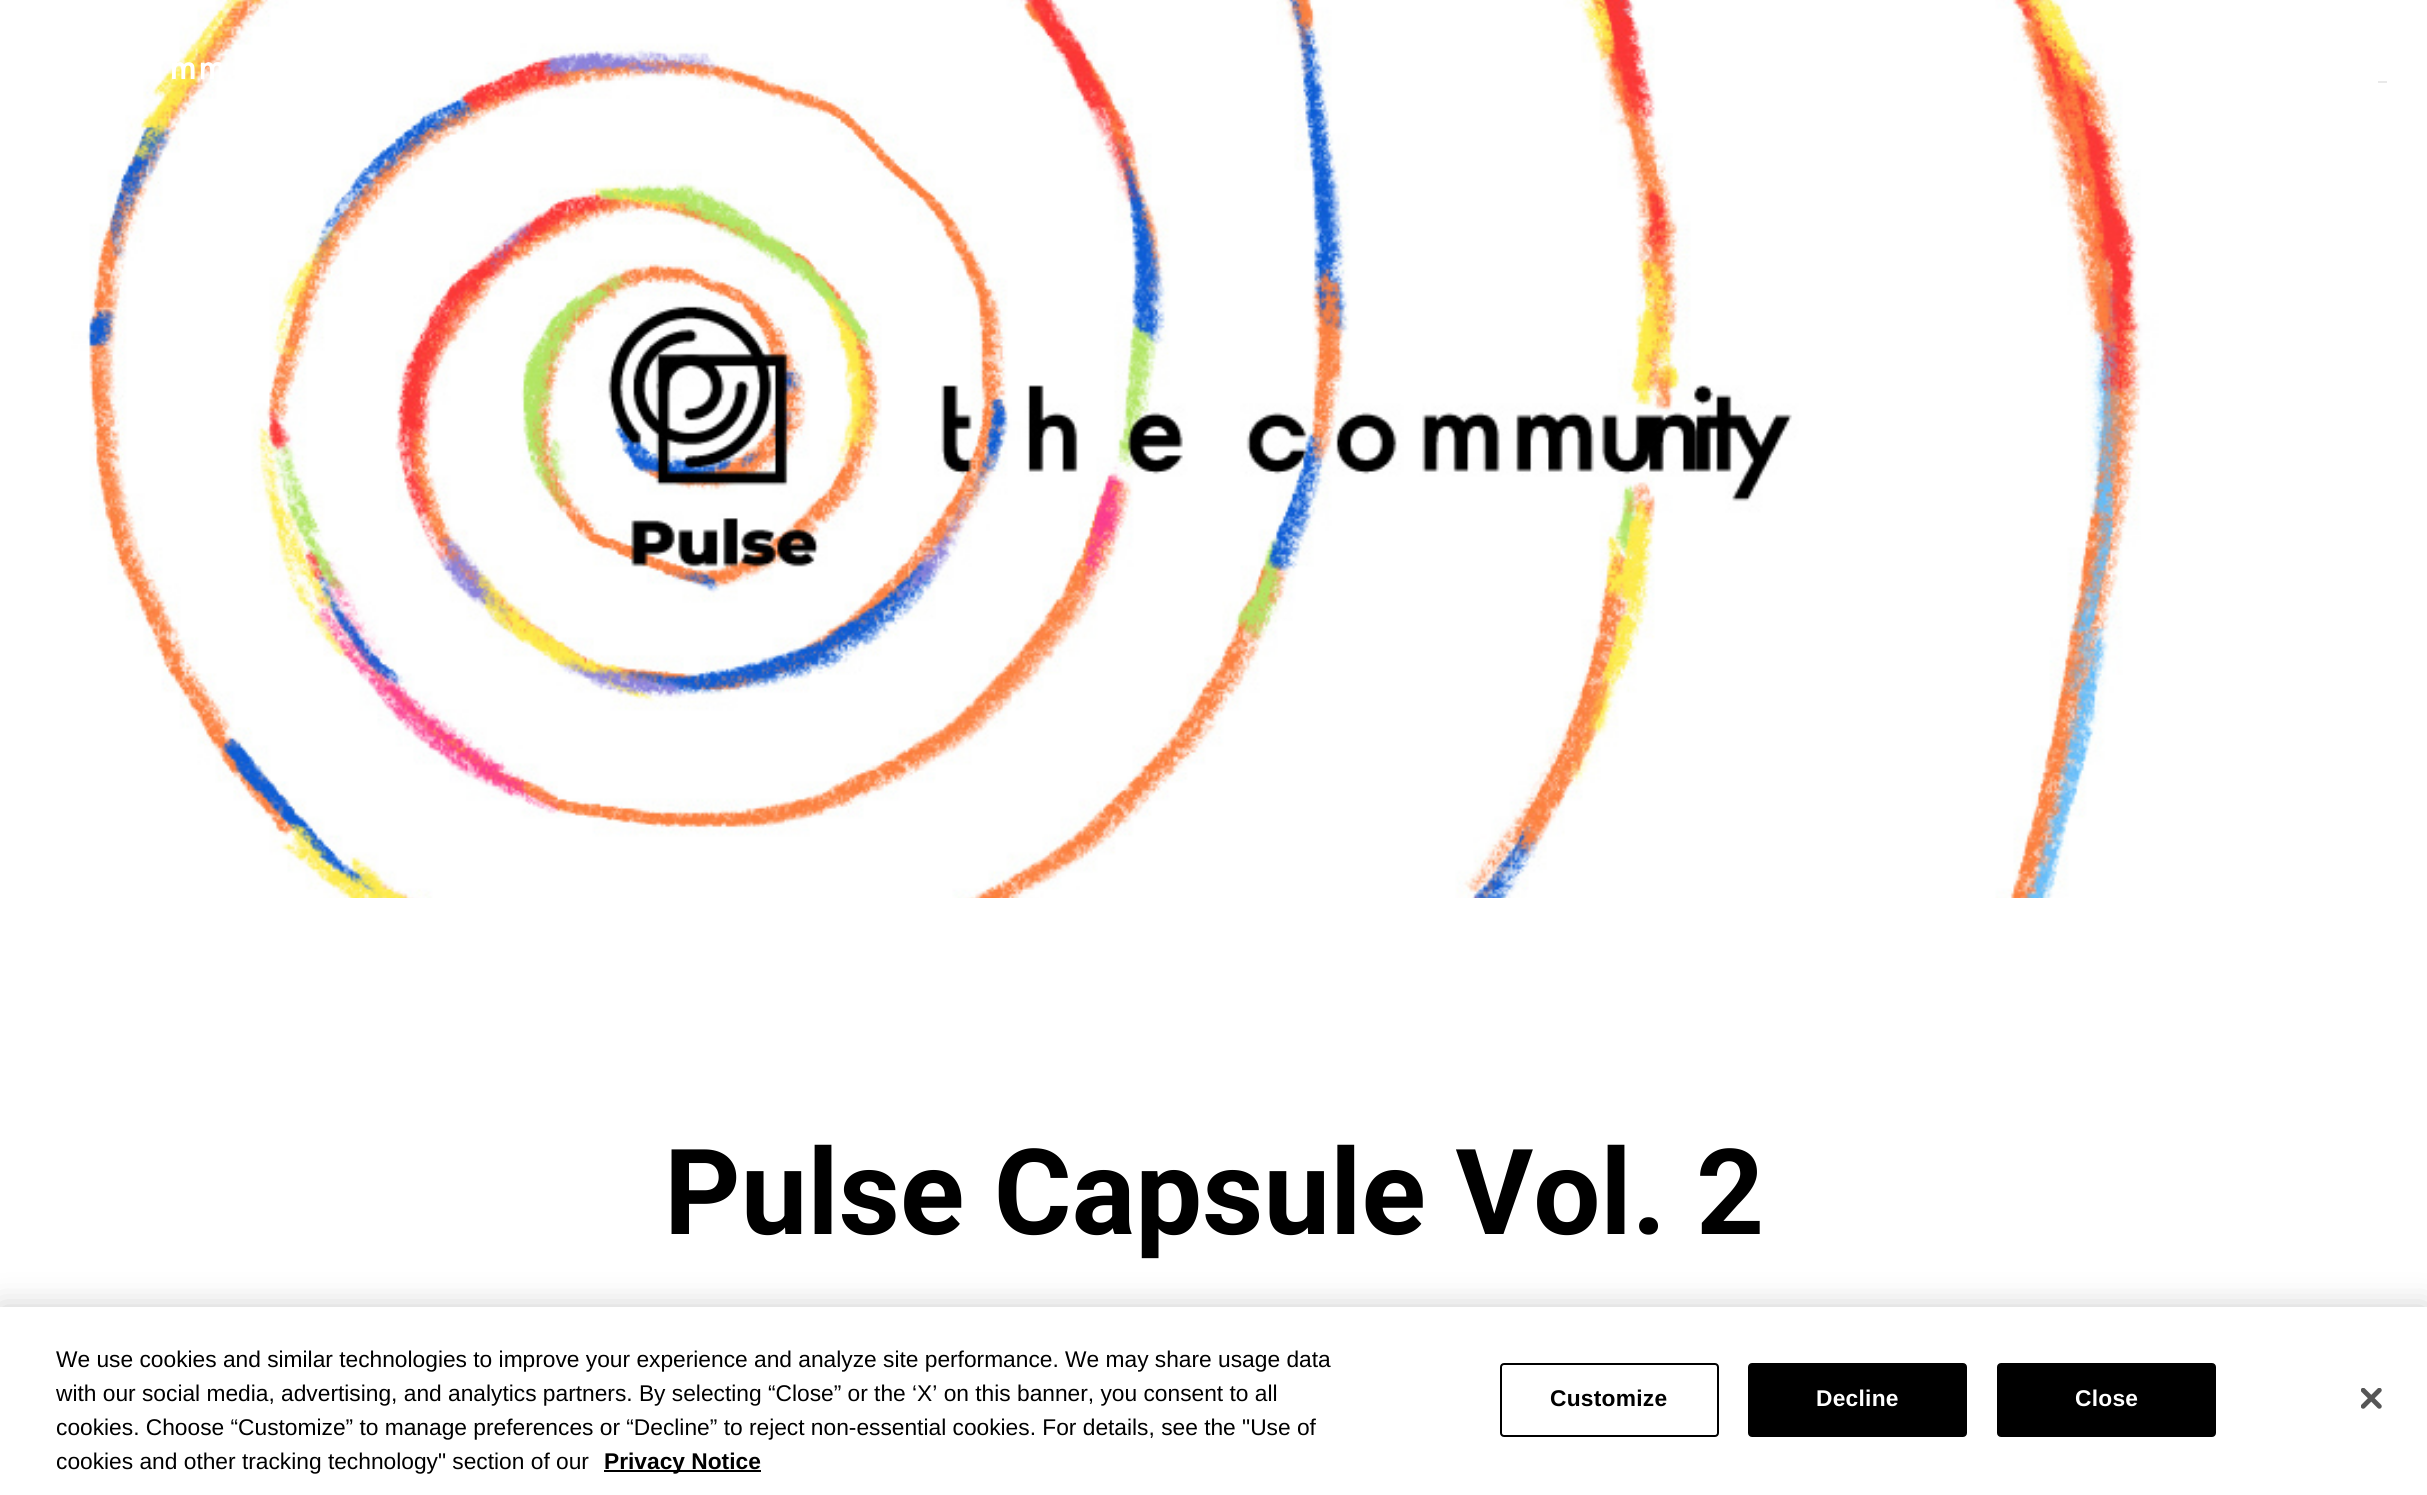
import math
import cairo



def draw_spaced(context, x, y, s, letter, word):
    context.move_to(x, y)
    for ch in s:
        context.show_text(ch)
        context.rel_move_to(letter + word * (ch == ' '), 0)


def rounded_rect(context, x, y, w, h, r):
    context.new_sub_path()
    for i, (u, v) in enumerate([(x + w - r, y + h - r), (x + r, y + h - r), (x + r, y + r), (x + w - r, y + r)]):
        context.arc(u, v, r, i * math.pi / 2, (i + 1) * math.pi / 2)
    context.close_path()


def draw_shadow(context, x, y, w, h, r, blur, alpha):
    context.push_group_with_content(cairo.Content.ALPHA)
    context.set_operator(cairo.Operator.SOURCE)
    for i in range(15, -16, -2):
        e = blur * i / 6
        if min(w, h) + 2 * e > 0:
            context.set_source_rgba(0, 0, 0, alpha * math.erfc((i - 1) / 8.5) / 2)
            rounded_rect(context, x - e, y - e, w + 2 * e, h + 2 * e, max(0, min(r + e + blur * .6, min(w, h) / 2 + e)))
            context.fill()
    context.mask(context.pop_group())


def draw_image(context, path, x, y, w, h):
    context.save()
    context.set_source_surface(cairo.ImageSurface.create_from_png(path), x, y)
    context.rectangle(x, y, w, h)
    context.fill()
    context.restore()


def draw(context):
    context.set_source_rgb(1, 1, 1)
    context.paint()
    draw_image(context, "images/1.png", 0, 0, 2427, 898)
    draw_image(context, "images/2.png", 172, 62, 49, 18)
    context.set_source_rgb(233 / 255, 233 / 255, 233 / 255)
    context.rectangle(2378, 81, 9, 2)
    context.fill()
    context.set_source_rgb(0, 0, 0)
    draw_shadow(context, 0, 1307, 2427, 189, 0, 16, 0.2)
    context.set_source_rgb(1, 1, 1)
    context.rectangle(0, 1307, 2427, 188)
    context.fill()
    context.set_source_rgb(0, 0, 0)
    context.rectangle(604, 1470, 157, 2)
    context.fill()
    rounded_rect(context, 1501, 1364, 217, 72, 3)
    context.stroke()
    rounded_rect(context, 1749, 1364, 217, 72, 3)
    context.fill_preserve()
    context.stroke()
    rounded_rect(context, 1998, 1364, 217, 72, 3)
    context.fill_preserve()
    context.stroke()
    draw_image(context, "images/3.png", 2361, 1388, 21, 21)
    context.select_font_face("Roboto", cairo.FontSlant.NORMAL, cairo.FontWeight.BOLD)
    context.set_font_size(119)
    context.move_to(664, 1234)
    context.show_text("Pulse Capsule Vol. 2")
    context.select_font_face("Liberation Sans")
    context.set_font_size(22.75)
    context.move_to(56, 1367)
    context.show_text("We use cookies and similar technologies to improve your experience and analyze site performance. We may share usage data")
    context.move_to(56, 1401)
    context.show_text("with our social media, advertising, and analytics partners. By selecting “Close” or the ‘X’ on this banner, you consent to all")
    context.move_to(56, 1435)
    context.show_text("cookies. Choose “Customize” to manage preferences or “Decline” to reject non-essential cookies. For details, see the \"Use of")
    context.move_to(56, 1469)
    context.show_text("cookies and other tracking technology\" section of our")
    context.select_font_face("Liberation Sans", cairo.FontSlant.NORMAL, cairo.FontWeight.BOLD)
    context.move_to(604, 1469)
    context.show_text("Privacy Notice")
    draw_spaced(context, 1550, 1406, "Customize", 0.25, 0)
    context.set_source_rgb(1, 1, 1)
    draw_spaced(context, 1816, 1406, "Decline", 0.25, 0)
    draw_spaced(context, 2075, 1406, "Close", 0.25, 0)


surface = cairo.ImageSurface(cairo.Format.RGB24, 2427, 1495)
context = cairo.Context(surface)
options = cairo.FontOptions()
options.set_hint_metrics(cairo.HintMetrics.OFF)
options.set_hint_style(cairo.HintStyle.NONE)
context.set_font_options(options)
context.set_miter_limit(4)
draw(context)
surface.write_to_png("out.png")
